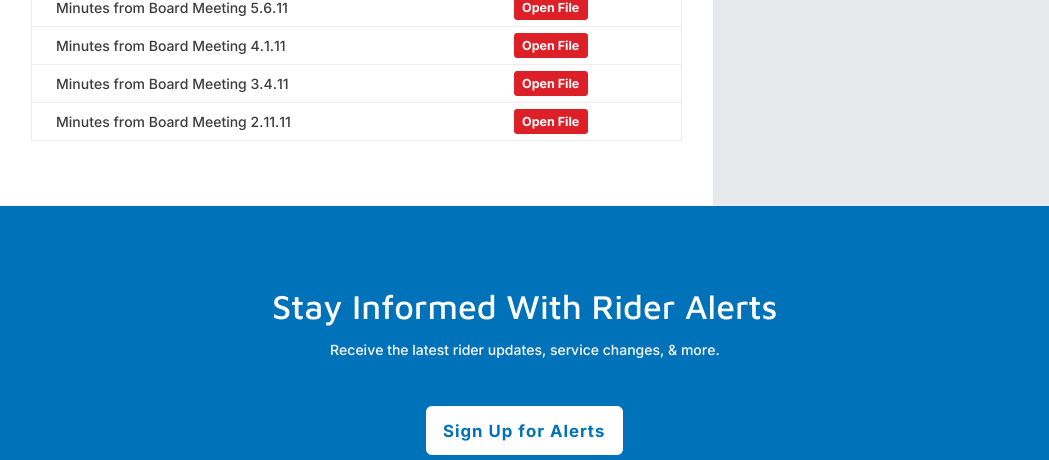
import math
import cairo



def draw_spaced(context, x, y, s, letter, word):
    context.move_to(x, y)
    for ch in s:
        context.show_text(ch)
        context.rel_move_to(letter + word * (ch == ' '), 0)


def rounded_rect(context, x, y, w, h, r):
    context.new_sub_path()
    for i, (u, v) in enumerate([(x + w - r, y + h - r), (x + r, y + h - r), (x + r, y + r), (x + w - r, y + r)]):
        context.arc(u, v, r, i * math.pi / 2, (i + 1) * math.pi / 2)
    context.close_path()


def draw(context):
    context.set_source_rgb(232 / 255, 233 / 255, 237 / 255)
    context.paint()
    context.set_source_rgb(1, 1, 1)
    context.rectangle(0, 0, 713, 206)
    context.fill()
    context.set_source_rgb(238 / 255, 238 / 255, 238 / 255)
    context.rectangle(681, 0, 1, 141)
    context.fill()
    context.rectangle(31, 140, 651, 1)
    context.fill()
    context.rectangle(31, 0, 1, 141)
    context.fill()
    context.set_source_rgb(221 / 255, 31 / 255, 39 / 255)
    rounded_rect(context, 514, -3, 74, 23, 3)
    context.fill()
    context.set_source_rgb(238 / 255, 238 / 255, 238 / 255)
    context.rectangle(31, 26, 651, 1)
    context.fill()
    context.set_source_rgb(221 / 255, 31 / 255, 39 / 255)
    rounded_rect(context, 514, 33, 74, 25, 3)
    context.fill()
    context.set_source_rgb(238 / 255, 238 / 255, 238 / 255)
    context.rectangle(31, 64, 651, 1)
    context.fill()
    context.set_source_rgb(221 / 255, 31 / 255, 39 / 255)
    rounded_rect(context, 514, 71, 74, 25, 3)
    context.fill()
    context.set_source_rgb(238 / 255, 238 / 255, 238 / 255)
    context.rectangle(31, 102, 651, 1)
    context.fill()
    context.set_source_rgb(221 / 255, 31 / 255, 39 / 255)
    rounded_rect(context, 514, 109, 74, 25, 3)
    context.fill()
    context.set_source_rgb(0, 114 / 255, 186 / 255)
    context.rectangle(0, 206, 1049, 254)
    context.fill()
    context.set_source_rgb(1, 1, 1)
    rounded_rect(context, 426, 406, 197, 49, 6)
    context.fill()
    context.select_font_face("Inter Medium")
    context.set_font_size(14)
    context.set_source_rgb(61 / 255, 60 / 255, 60 / 255)
    context.move_to(56, 13)
    context.show_text("Minutes from Board Meeting 5.6.11")
    context.select_font_face("Inter", cairo.FontSlant.NORMAL, cairo.FontWeight.BOLD)
    context.set_font_size(12.5)
    context.set_source_rgb(1, 1, 1)
    context.move_to(522, 12)
    context.show_text("Open File")
    context.select_font_face("Inter Medium")
    context.set_font_size(14)
    context.set_source_rgb(61 / 255, 60 / 255, 60 / 255)
    context.move_to(56, 51)
    context.show_text("Minutes from Board Meeting 4.1.11")
    context.select_font_face("Inter", cairo.FontSlant.NORMAL, cairo.FontWeight.BOLD)
    context.set_font_size(12.5)
    context.set_source_rgb(1, 1, 1)
    context.move_to(522, 50)
    context.show_text("Open File")
    context.select_font_face("Inter Medium")
    context.set_font_size(14)
    context.set_source_rgb(61 / 255, 60 / 255, 60 / 255)
    context.move_to(56, 89)
    context.show_text("Minutes from Board Meeting 3.4.11")
    context.select_font_face("Inter", cairo.FontSlant.NORMAL, cairo.FontWeight.BOLD)
    context.set_font_size(12.5)
    context.set_source_rgb(1, 1, 1)
    context.move_to(522, 88)
    context.show_text("Open File")
    context.select_font_face("Inter Medium")
    context.set_font_size(14)
    context.set_source_rgb(61 / 255, 60 / 255, 60 / 255)
    context.move_to(56, 127)
    context.show_text("Minutes from Board Meeting 2.11.11")
    context.select_font_face("Inter", cairo.FontSlant.NORMAL, cairo.FontWeight.BOLD)
    context.set_font_size(12.5)
    context.set_source_rgb(1, 1, 1)
    context.move_to(522, 126)
    context.show_text("Open File")
    context.select_font_face("Maven Pro Medium")
    context.set_font_size(34)
    context.move_to(272, 319)
    context.show_text("Stay Informed With Rider Alerts")
    context.select_font_face("Inter Medium")
    context.set_font_size(14)
    context.move_to(330, 355)
    context.show_text("Receive the latest rider updates, service changes, & more.")
    context.select_font_face("Inter", cairo.FontSlant.NORMAL, cairo.FontWeight.BOLD)
    context.set_font_size(16.75)
    context.set_source_rgb(0, 114 / 255, 186 / 255)
    draw_spaced(context, 443, 437, "Sign Up for Alerts", 1, 0)


surface = cairo.ImageSurface(cairo.Format.RGB24, 1049, 460)
context = cairo.Context(surface)
options = cairo.FontOptions()
options.set_hint_metrics(cairo.HintMetrics.OFF)
options.set_hint_style(cairo.HintStyle.NONE)
context.set_font_options(options)
context.set_miter_limit(4)
draw(context)
surface.write_to_png("out.png")
